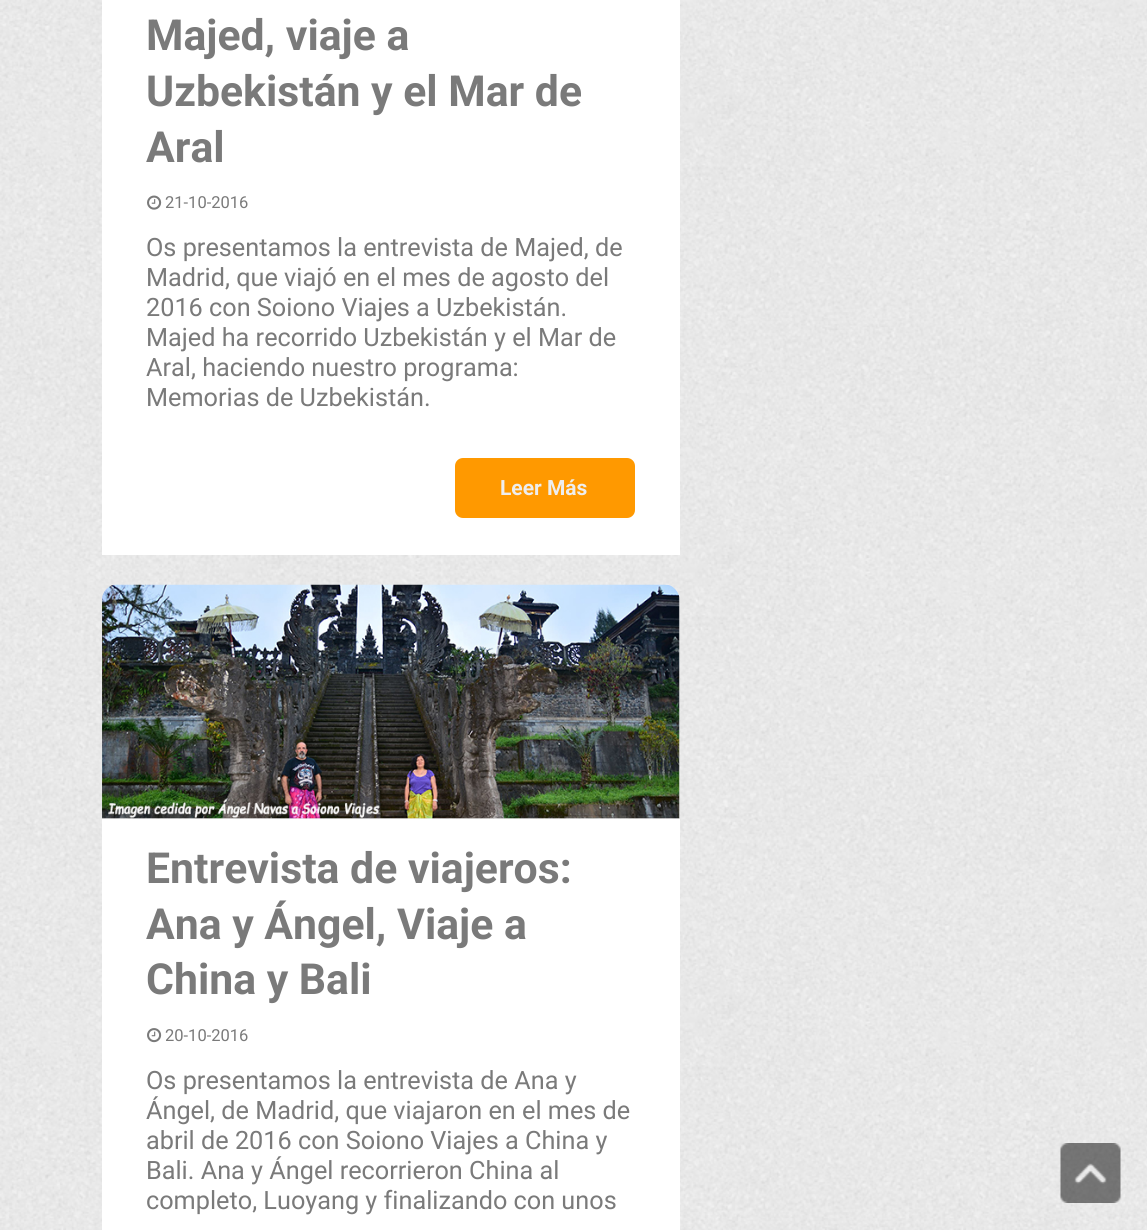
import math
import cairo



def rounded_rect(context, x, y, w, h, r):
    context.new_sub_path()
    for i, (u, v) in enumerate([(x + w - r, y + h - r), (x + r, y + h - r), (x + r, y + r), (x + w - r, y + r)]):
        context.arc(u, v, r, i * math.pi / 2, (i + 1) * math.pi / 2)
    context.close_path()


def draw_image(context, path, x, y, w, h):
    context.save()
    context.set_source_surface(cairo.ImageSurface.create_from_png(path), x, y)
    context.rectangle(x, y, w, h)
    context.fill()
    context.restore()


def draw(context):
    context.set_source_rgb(1, 1, 1)
    context.paint()
    draw_image(context, "images/1.png", 0, 0, 1147, 1230)
    context.set_source_rgb(1, 1, 1)
    context.rectangle(102, 0, 578, 555)
    context.fill()
    draw_image(context, "images/2.png", 147, 195, 15, 15)
    context.set_source_rgb(1, 153 / 255, 0)
    rounded_rect(context, 455, 458, 180, 60, 8)
    context.fill()
    draw_image(context, "images/3.png", 102, 584, 578, 235)
    context.set_source_rgb(1, 1, 1)
    context.rectangle(102, 819, 578, 411)
    context.fill()
    draw_image(context, "images/4.png", 147, 1028, 15, 15)
    draw_image(context, "images/5.png", 1060, 1143, 61, 60)
    context.select_font_face("Roboto", cairo.FontSlant.NORMAL, cairo.FontWeight.BOLD)
    context.set_font_size(42.75)
    context.set_source_rgb(122 / 255, 122 / 255, 122 / 255)
    context.move_to(146, 50)
    context.show_text("Majed, viaje a")
    context.move_to(146, 106)
    context.show_text("Uzbekistán y el Mar de")
    context.move_to(146, 162)
    context.show_text("Aral")
    context.select_font_face("Roboto")
    context.set_font_size(16.5)
    context.move_to(165, 208)
    context.show_text("21-10-2016")
    context.set_font_size(25.25)
    context.move_to(146, 256)
    context.show_text("Os presentamos la entrevista de Majed, de")
    context.move_to(146, 286)
    context.show_text("Madrid, que viajó en el mes de agosto del")
    context.move_to(146, 316)
    context.show_text("2016 con Soiono Viajes a Uzbekistán.")
    context.move_to(146, 346)
    context.show_text("Majed ha recorrido Uzbekistán y el Mar de")
    context.move_to(146, 376)
    context.show_text("Aral, haciendo nuestro programa:")
    context.move_to(146, 406)
    context.show_text("Memorias de Uzbekistán.")
    context.select_font_face("Roboto", cairo.FontSlant.NORMAL, cairo.FontWeight.BOLD)
    context.set_font_size(21)
    context.set_source_rgb(238 / 255, 238 / 255, 238 / 255)
    context.move_to(500, 495)
    context.show_text("Leer Más")
    context.set_font_size(42.75)
    context.set_source_rgb(122 / 255, 122 / 255, 122 / 255)
    context.move_to(146, 883)
    context.show_text("Entrevista de viajeros:")
    context.move_to(146, 939)
    context.show_text("Ana y Ángel, Viaje a")
    context.move_to(146, 994)
    context.show_text("China y Bali")
    context.select_font_face("Roboto")
    context.set_font_size(16.5)
    context.move_to(165, 1041)
    context.show_text("20-10-2016")
    context.set_font_size(25.25)
    context.move_to(146, 1089)
    context.show_text("Os presentamos la entrevista de Ana y")
    context.move_to(146, 1119)
    context.show_text("Ángel, de Madrid, que viajaron en el mes de")
    context.move_to(146, 1149)
    context.show_text("abril de 2016 con Soiono Viajes a China y")
    context.move_to(146, 1179)
    context.show_text("Bali. Ana y Ángel recorrieron China al")
    context.move_to(146, 1209)
    context.show_text("completo, Luoyang y finalizando con unos")


surface = cairo.ImageSurface(cairo.Format.RGB24, 1147, 1230)
context = cairo.Context(surface)
options = cairo.FontOptions()
options.set_hint_metrics(cairo.HintMetrics.OFF)
options.set_hint_style(cairo.HintStyle.NONE)
context.set_font_options(options)
context.set_miter_limit(4)
draw(context)
surface.write_to_png("out.png")
